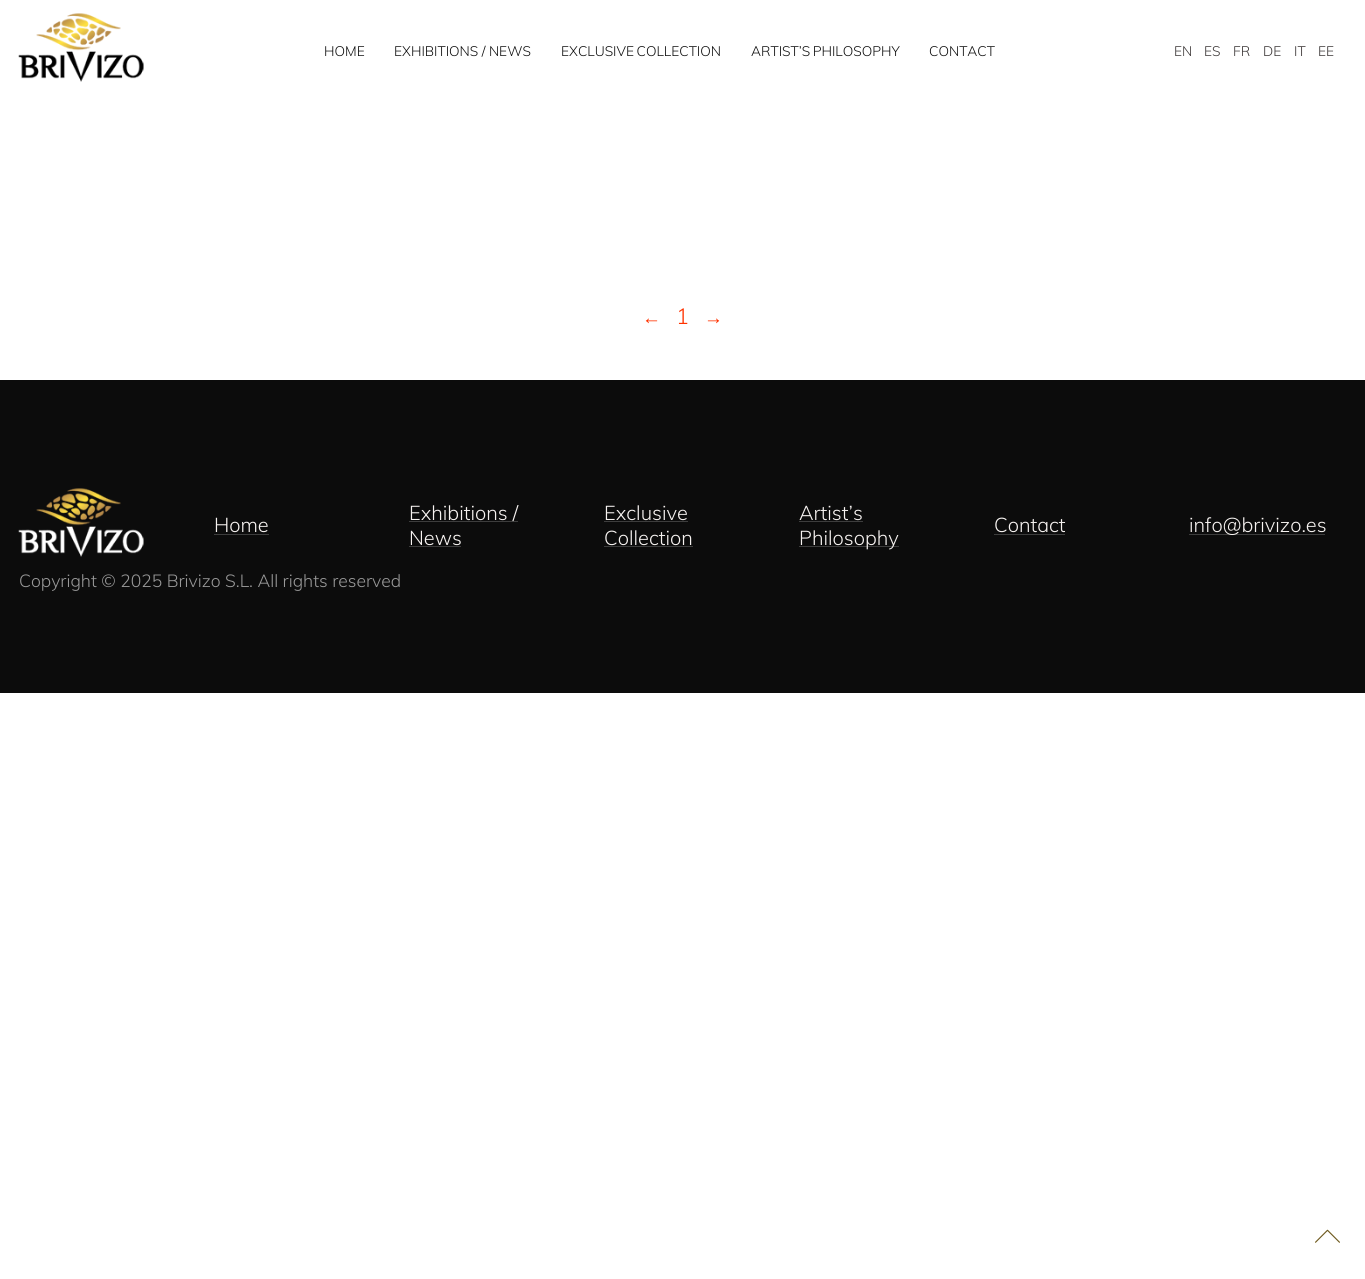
import math
import cairo



def draw_spaced(context, x, y, s, letter, word):
    context.move_to(x, y)
    for ch in s:
        context.show_text(ch)
        context.rel_move_to(letter + word * (ch == ' '), 0)


def draw_image(context, path, x, y, w, h):
    context.save()
    context.set_source_surface(cairo.ImageSurface.create_from_png(path), x, y)
    context.rectangle(x, y, w, h)
    context.fill()
    context.restore()


def draw(context):
    context.set_source_rgb(1, 1, 1)
    context.paint()
    draw_image(context, "images/1.png", 18, 13, 126, 69)
    context.set_source_rgb(12 / 255, 12 / 255, 12 / 255)
    context.rectangle(0, 380, 1365, 313)
    context.fill()
    draw_image(context, "images/2.png", 18, 488, 126, 69)
    context.set_source_rgb(61 / 255, 61 / 255, 61 / 255)
    context.rectangle(214, 534, 55, 1)
    context.fill()
    context.rectangle(409, 521, 109, 1)
    context.fill()
    context.rectangle(409, 546, 52, 1)
    context.fill()
    context.rectangle(604, 521, 84, 1)
    context.fill()
    context.rectangle(604, 546, 89, 1)
    context.fill()
    context.rectangle(799, 521, 64, 1)
    context.fill()
    context.rectangle(799, 546, 100, 1)
    context.fill()
    context.rectangle(994, 534, 71, 1)
    context.fill()
    context.rectangle(1189, 534, 136, 1)
    context.fill()
    draw_image(context, "images/3.png", 1315, 1229, 25, 14)
    context.select_font_face("Muli Light")
    context.set_font_size(13.75)
    context.set_source_rgb(12 / 255, 12 / 255, 12 / 255)
    context.move_to(324, 56)
    context.show_text("HOME")
    context.move_to(394, 56)
    context.show_text("EXHIBITIONS / NEWS")
    draw_spaced(context, 561, 56, "EXCLUSIVE COLLECTION", 0, -1)
    draw_spaced(context, 751, 56, "ARTIST’S PHILOSOPHY", 0, -1)
    context.move_to(929, 56)
    context.show_text("CONTACT")
    context.set_source_rgb(56 / 255, 51 / 255, 51 / 255)
    context.move_to(1174, 56)
    context.show_text("EN")
    context.move_to(1204, 56)
    context.show_text("ES")
    context.move_to(1233, 56)
    context.show_text("FR")
    context.move_to(1263, 56)
    context.show_text("DE")
    context.move_to(1294, 56)
    context.show_text("IT")
    context.move_to(1318, 56)
    context.show_text("EE")
    context.select_font_face("Liberation Sans")
    context.set_font_size(19)
    context.set_source_rgb(1, 50 / 255, 0)
    context.move_to(642, 324)
    context.show_text("←")
    context.select_font_face("Muli Light")
    context.set_font_size(22)
    context.move_to(676, 324)
    context.show_text("1")
    context.select_font_face("Liberation Sans")
    context.set_font_size(19)
    context.move_to(704, 324)
    context.show_text("→")
    context.select_font_face("Muli Light")
    context.set_font_size(20)
    context.set_source_rgb(247 / 255, 243 / 255, 241 / 255)
    context.move_to(214, 532)
    context.show_text("Home")
    context.move_to(409, 520)
    context.show_text("Exhibitions /")
    context.move_to(409, 545)
    context.show_text("News")
    context.move_to(604, 520)
    context.show_text("Exclusive")
    context.move_to(604, 545)
    context.show_text("Collection")
    context.move_to(799, 520)
    context.show_text("Artist’s")
    context.move_to(799, 545)
    context.show_text("Philosophy")
    context.move_to(994, 532)
    context.show_text("Contact")
    context.move_to(1189, 532)
    context.show_text("info@brivizo.es")
    context.set_font_size(17.5)
    context.set_source_rgb(153 / 255, 153 / 255, 153 / 255)
    context.move_to(19, 587)
    context.show_text("Copyright © 2025 Brivizo S.L. All rights reserved")


surface = cairo.ImageSurface(cairo.Format.RGB24, 1365, 1279)
context = cairo.Context(surface)
options = cairo.FontOptions()
options.set_hint_metrics(cairo.HintMetrics.OFF)
options.set_hint_style(cairo.HintStyle.NONE)
context.set_font_options(options)
context.set_miter_limit(4)
draw(context)
surface.write_to_png("out.png")
